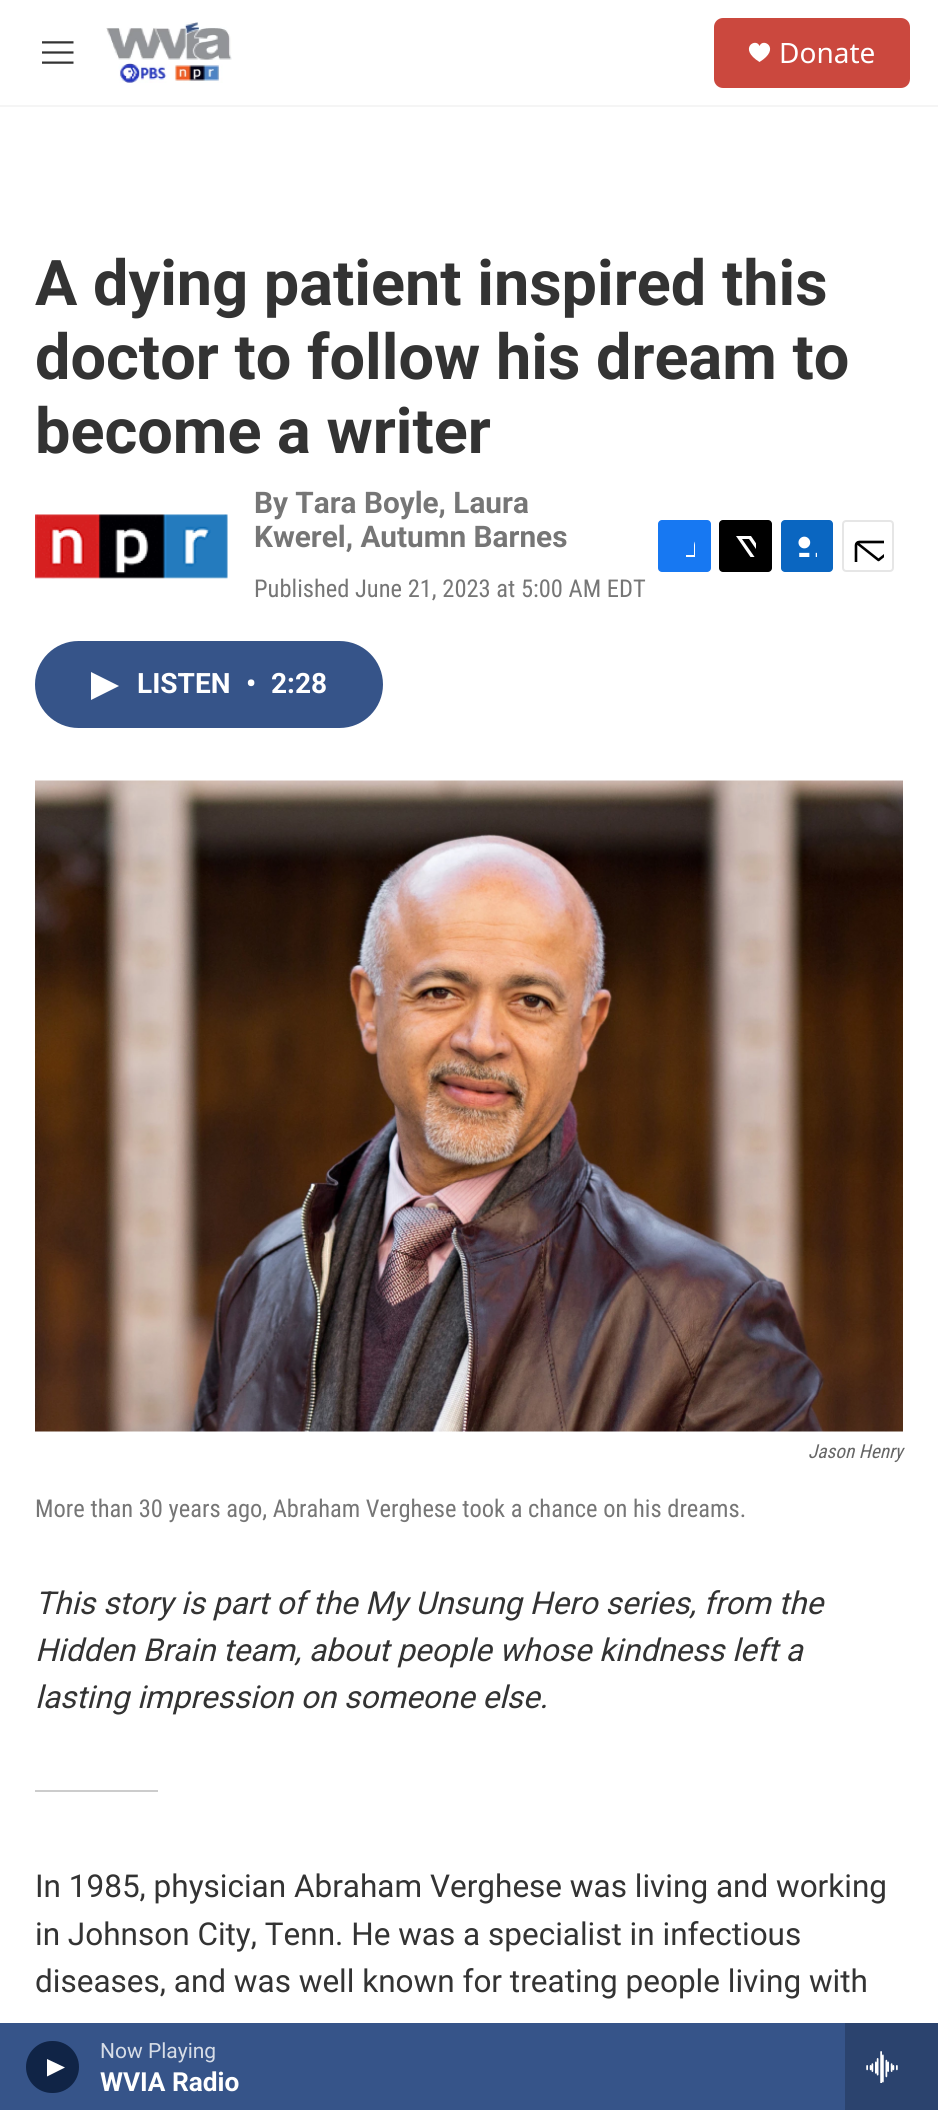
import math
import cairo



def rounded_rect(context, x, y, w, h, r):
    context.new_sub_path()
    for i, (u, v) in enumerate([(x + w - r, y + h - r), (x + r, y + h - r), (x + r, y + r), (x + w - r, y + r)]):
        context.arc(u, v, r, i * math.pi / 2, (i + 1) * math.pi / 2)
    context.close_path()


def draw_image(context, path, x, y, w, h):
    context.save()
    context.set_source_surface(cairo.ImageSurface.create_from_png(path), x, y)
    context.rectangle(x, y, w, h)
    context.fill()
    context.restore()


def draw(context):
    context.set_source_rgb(1, 1, 1)
    context.paint()
    context.set_source_rgb(245 / 255, 245 / 255, 245 / 255)
    context.rectangle(0, 105, 938, 2)
    context.fill()
    draw_image(context, "images/1.png", 42, 41, 32, 23)
    draw_image(context, "images/2.png", 106, 22, 126, 61)
    context.set_source_rgb(203 / 255, 72 / 255, 62 / 255)
    rounded_rect(context, 714, 18, 196, 70, 9)
    context.fill()
    context.set_source_rgb(1, 1, 1)
    context.new_path()
    context.move_to(759.5, 46)
    context.curve_to(756, 37, 737.5, 48.5, 759.5, 62)
    context.curve_to(781.5, 48.5, 763, 37, 759.5, 46)
    context.close_path()
    context.fill()
    context.set_source_rgb(54 / 255, 84 / 255, 137 / 255)
    context.rectangle(0, 2023, 845, 87)
    context.fill()
    context.set_source_rgb(16 / 255, 36 / 255, 70 / 255)
    rounded_rect(context, 26, 2041, 53, 52, 26)
    context.fill()
    context.set_source_rgb(1, 1, 1)
    context.new_path()
    context.move_to(47, 2059)
    context.line_to(65, 2067.5)
    context.line_to(47, 2076.5)
    context.close_path()
    context.fill()
    context.set_source_rgb(43 / 255, 67 / 255, 110 / 255)
    context.rectangle(845, 2023, 93, 87)
    context.fill()
    draw_image(context, "images/3.png", 866, 2051, 32, 32)
    draw_image(context, "images/4.png", 35, 514, 193, 65)
    context.set_source_rgb(23 / 255, 120 / 255, 242 / 255)
    rounded_rect(context, 658, 520, 53, 52, 4)
    context.fill()
    context.save()
    context.rectangle(674, 536, 21, 21)
    context.clip()
    context.set_source_rgb(1, 1, 1)
    context.new_path()
    context.move_to(703, 572)
    context.line_to(694, 572)
    context.line_to(694, 564)
    context.line_to(686, 564)
    context.line_to(686, 555)
    context.line_to(694, 555)
    context.line_to(694, 545)
    context.curve_to(695, 536.5, 703.5, 535, 711, 537)
    context.line_to(711, 544)
    context.curve_to(701, 544, 703, 547, 703, 555)
    context.line_to(711, 555)
    context.line_to(710, 564)
    context.line_to(703, 564)
    context.close_path()
    context.fill()
    context.restore()
    context.set_source_rgb(0, 0, 0)
    rounded_rect(context, 719, 520, 53, 52, 4)
    context.fill()
    context.save()
    context.rectangle(735, 536, 21, 21)
    context.clip()
    context.set_source_rgb(1, 1, 1)
    context.new_path()
    context.move_to(766, 558)
    context.line_to(772, 566.5)
    context.curve_to(772, 568, 772, 569.5, 771, 570.5)
    context.line_to(749, 539)
    context.line_to(742, 539)
    context.line_to(765, 572)
    context.line_to(761, 572)
    context.line_to(758, 568)
    context.line_to(754.5, 572)
    context.line_to(750, 572)
    context.line_to(756, 565)
    context.line_to(736, 536)
    context.line_to(751, 536)
    context.line_to(764, 555)
    context.line_to(772, 546)
    context.line_to(772, 551)
    context.close_path()
    context.fill()
    context.restore()
    context.set_source_rgb(10 / 255, 102 / 255, 193 / 255)
    rounded_rect(context, 781, 520, 52, 52, 4)
    context.fill()
    draw_image(context, "images/5.png", 798, 536, 19, 21)
    rounded_rect(context, 843, 521, 50, 50, 3)
    context.set_source_rgb(230 / 255, 230 / 255, 230 / 255)
    context.stroke()
    context.save()
    context.rectangle(852, 530, 32, 32)
    context.clip()
    context.new_path()
    context.move_to(901, 568.5)
    context.curve_to(901, 570.5, 899.5, 572, 898, 572)
    context.line_to(859, 572)
    context.curve_to(857.5, 572, 856, 570.5, 856, 568.5)
    context.line_to(856, 545)
    context.curve_to(856, 543.5, 857.5, 542, 859, 542)
    context.line_to(898, 542)
    context.curve_to(899.5, 542, 901, 543.5, 901, 545)
    context.close_path()
    context.move_to(900, 543)
    context.line_to(878.5, 560)
    context.line_to(857, 543)
    context.set_source_rgb(0, 0, 0)
    context.set_line_width(2.6)
    context.set_line_cap(cairo.LineCap.ROUND)
    context.set_line_join(cairo.LineJoin.ROUND)
    context.stroke()
    context.restore()
    context.set_source_rgb(54 / 255, 84 / 255, 137 / 255)
    rounded_rect(context, 35, 641, 348, 87, 43.5)
    context.fill()
    context.set_source_rgb(1, 1, 1)
    context.new_path()
    context.move_to(91, 672)
    context.line_to(119, 686)
    context.line_to(91, 700)
    context.close_path()
    context.fill()
    draw_image(context, "images/6.png", 35, 780, 868, 652)
    context.set_source_rgb(204 / 255, 204 / 255, 204 / 255)
    context.rectangle(35, 1790, 123, 2)
    context.fill()
    context.select_font_face("Noto Sans")
    context.set_font_size(28)
    context.set_source_rgb(1, 1, 1)
    context.move_to(779, 63)
    context.show_text("Donate")
    context.select_font_face("Roboto")
    context.set_font_size(21)
    context.set_source_rgb(215 / 255, 221 / 255, 231 / 255)
    context.move_to(100, 2058)
    context.show_text("Now Playing")
    context.select_font_face("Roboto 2", cairo.FontSlant.NORMAL, cairo.FontWeight.BOLD)
    context.set_font_size(26.25)
    context.set_source_rgb(1, 1, 1)
    context.move_to(100, 2091)
    context.show_text("WVIA Radio")
    context.select_font_face("Roboto", cairo.FontSlant.NORMAL, cairo.FontWeight.BOLD)
    context.set_font_size(63)
    context.set_source_rgb(51 / 255, 51 / 255, 51 / 255)
    context.move_to(35, 305)
    context.show_text("A dying patient inspired this")
    context.move_to(35, 379)
    context.show_text("doctor to follow his dream to")
    context.move_to(35, 453)
    context.show_text("become a writer")
    context.set_font_size(29.75)
    context.set_source_rgb(118 / 255, 118 / 255, 118 / 255)
    context.move_to(254, 513)
    context.show_text("By Tara Boyle, Laura")
    context.move_to(254, 547)
    context.show_text("Kwerel, Autumn Barnes")
    context.select_font_face("Roboto Condensed")
    context.set_font_size(24.5)
    context.move_to(254, 597)
    context.show_text("Published June 21, 2023 at 5:00 AM EDT")
    context.select_font_face("Roboto 2", cairo.FontSlant.NORMAL, cairo.FontWeight.BOLD)
    context.set_font_size(28)
    context.set_source_rgb(1, 1, 1)
    context.move_to(137, 693)
    context.show_text("LISTEN")
    context.move_to(246, 693)
    context.show_text("•")
    context.move_to(271, 693)
    context.show_text("2:28")
    context.select_font_face("Roboto Condensed", cairo.FontSlant.ITALIC)
    context.set_font_size(19.25)
    context.set_source_rgb(102 / 255, 102 / 255, 102 / 255)
    context.move_to(808, 1458)
    context.show_text("Jason Henry")
    context.select_font_face("Roboto Condensed")
    context.set_font_size(24.5)
    context.set_source_rgb(118 / 255, 118 / 255, 118 / 255)
    context.move_to(35, 1517)
    context.show_text("More than 30 years ago, Abraham Verghese took a chance on his dreams.")
    context.select_font_face("Roboto", cairo.FontSlant.ITALIC)
    context.set_font_size(31.5)
    context.set_source_rgb(51 / 255, 51 / 255, 51 / 255)
    context.move_to(35, 1614)
    context.show_text("This story is part of the My Unsung Hero series, from the")
    context.move_to(35, 1661)
    context.show_text("Hidden Brain team, about people whose kindness left a")
    context.move_to(35, 1708)
    context.show_text("lasting impression on someone else.")
    context.select_font_face("Roboto")
    context.move_to(35, 1897)
    context.show_text("In 1985, physician Abraham Verghese was living and working")
    context.move_to(35, 1945)
    context.show_text("in Johnson City, Tenn. He was a specialist in infectious")
    context.move_to(35, 1992)
    context.show_text("diseases, and was well known for treating people living with")


surface = cairo.ImageSurface(cairo.Format.RGB24, 938, 2110)
context = cairo.Context(surface)
options = cairo.FontOptions()
options.set_hint_metrics(cairo.HintMetrics.OFF)
options.set_hint_style(cairo.HintStyle.NONE)
context.set_font_options(options)
context.set_miter_limit(4)
draw(context)
surface.write_to_png("out.png")
